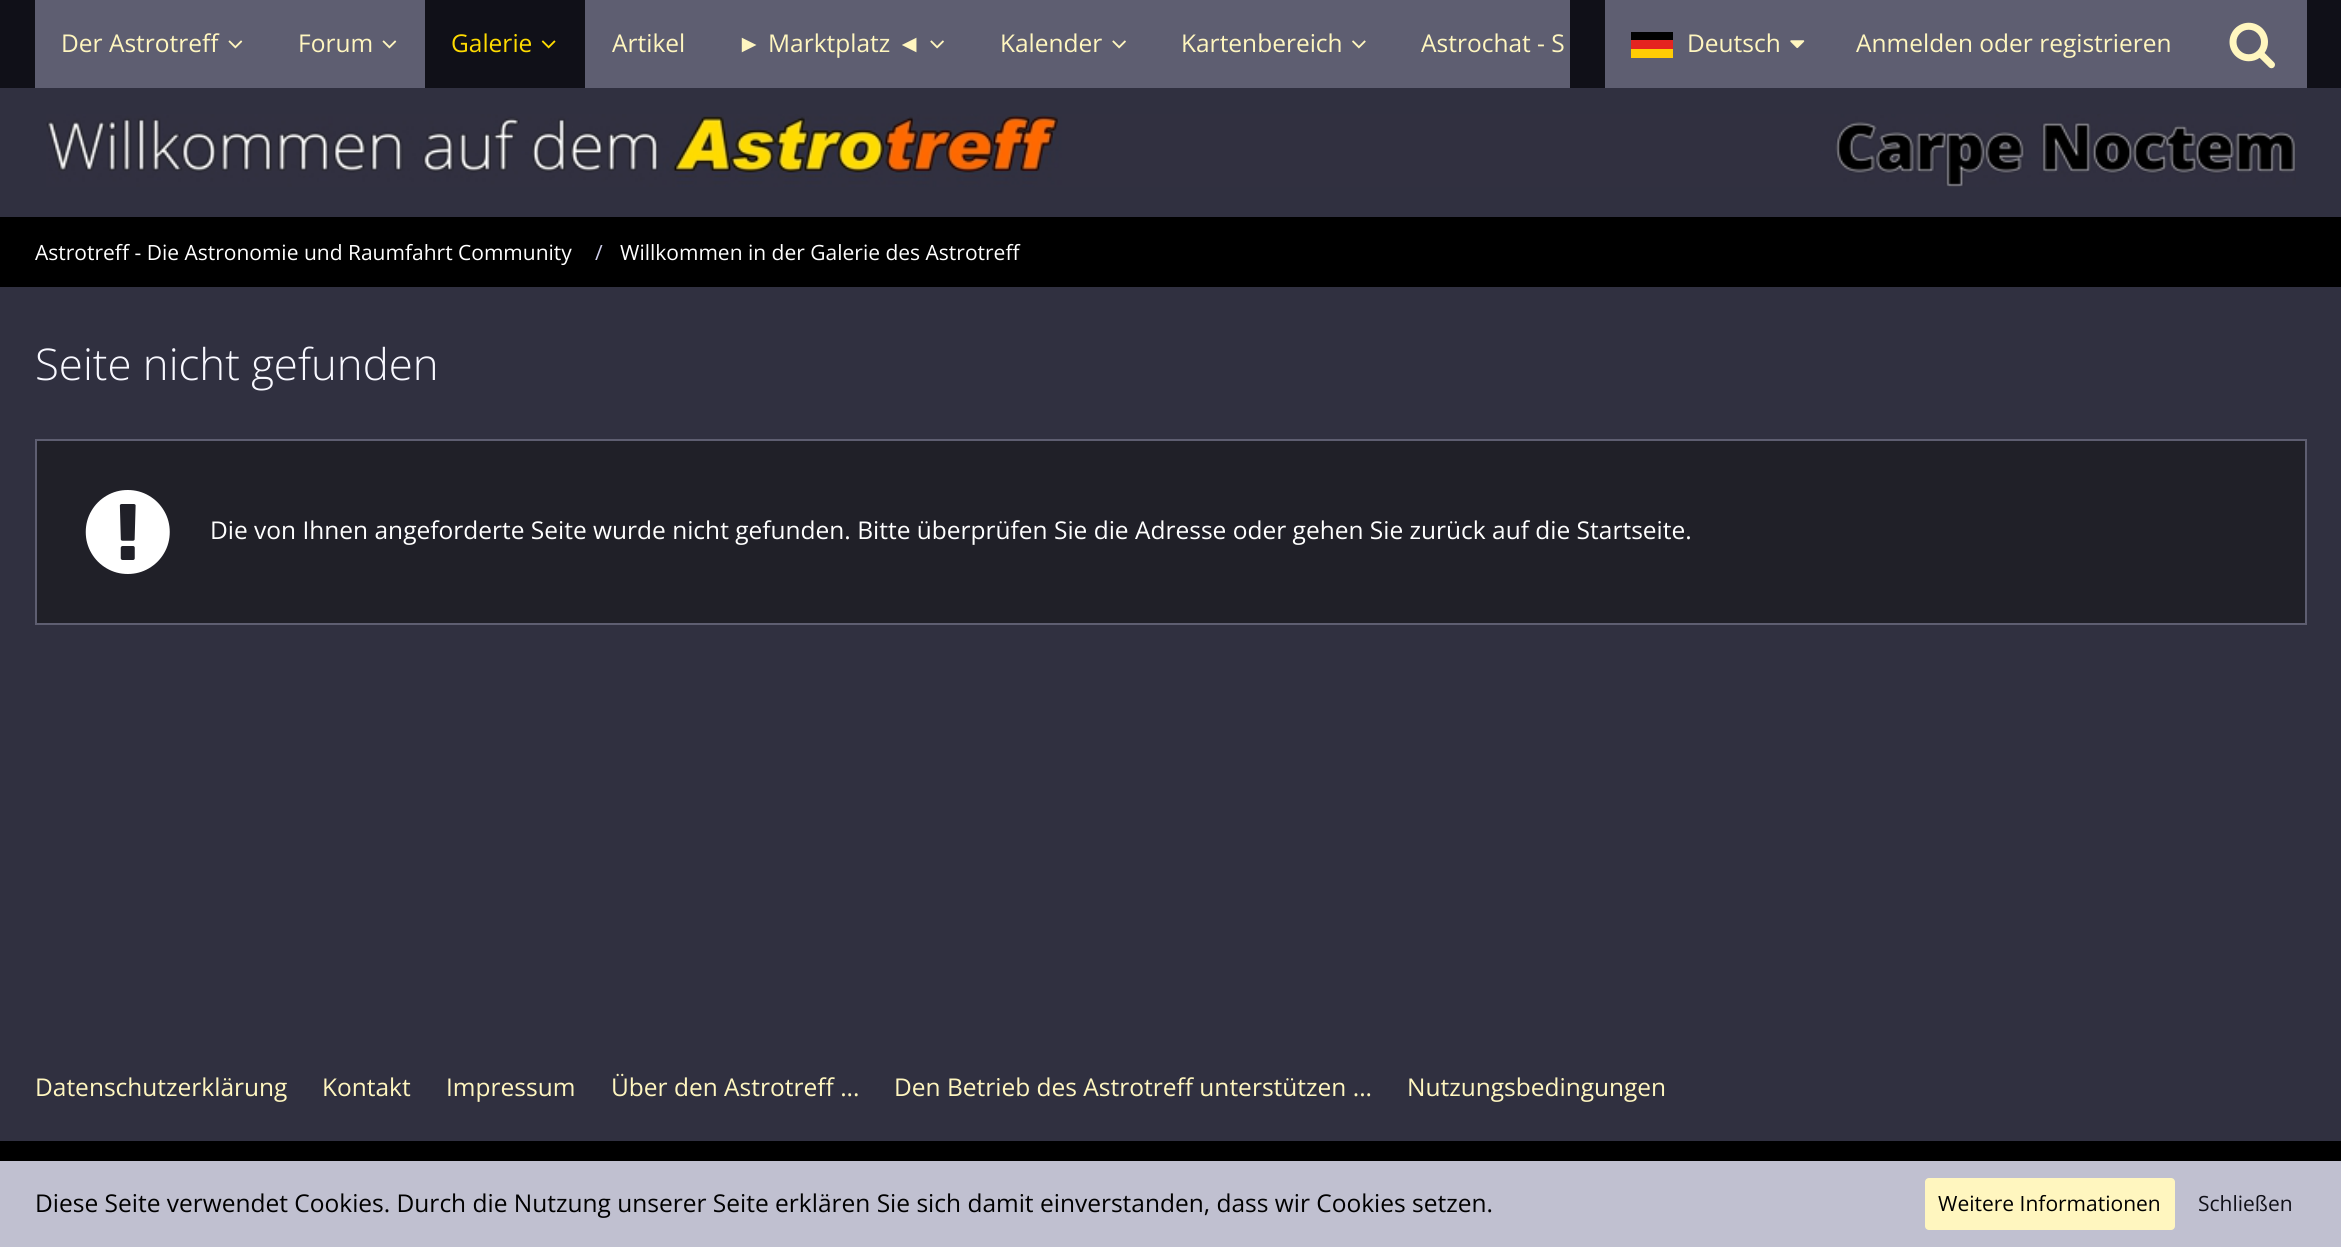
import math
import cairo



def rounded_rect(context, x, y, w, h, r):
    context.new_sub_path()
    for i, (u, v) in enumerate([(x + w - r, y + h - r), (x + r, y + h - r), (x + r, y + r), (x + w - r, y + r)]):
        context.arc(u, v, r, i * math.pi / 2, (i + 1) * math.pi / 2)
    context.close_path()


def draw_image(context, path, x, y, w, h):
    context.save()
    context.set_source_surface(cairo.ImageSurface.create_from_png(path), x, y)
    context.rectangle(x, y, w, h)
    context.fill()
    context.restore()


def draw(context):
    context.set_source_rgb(48 / 255, 48 / 255, 64 / 255)
    context.paint()
    context.set_source_rgb(16 / 255, 16 / 255, 24 / 255)
    context.rectangle(0, 0, 2341, 88)
    context.fill()
    context.set_source_rgb(94 / 255, 94 / 255, 113 / 255)
    context.rectangle(35, 0, 390, 88)
    context.fill()
    draw_image(context, "images/1.png", 228, 40, 15, 9)
    draw_image(context, "images/1.png", 382, 40, 15, 9)
    draw_image(context, "images/2.png", 541, 40, 15, 9)
    context.rectangle(585, 0, 985, 88)
    context.fill()
    draw_image(context, "images/3.png", 930, 40, 14, 9)
    draw_image(context, "images/3.png", 1112, 40, 14, 9)
    draw_image(context, "images/4.png", 1352, 40, 14, 9)
    context.rectangle(1605, 0, 702, 88)
    context.fill()
    context.set_source_rgb(1 / 255, 2 / 255, 2 / 255)
    context.rectangle(1631, 32, 42, 8)
    context.fill()
    context.set_source_rgb(1, 204 / 255, 4 / 255)
    context.rectangle(1631, 49, 42, 9)
    context.fill()
    context.set_source_rgb(229 / 255, 36 / 255, 32 / 255)
    context.rectangle(1631, 40, 42, 9)
    context.fill()
    draw_image(context, "images/5.png", 1790, 40, 15, 9)
    draw_image(context, "images/6.png", 2229, 22, 46, 47)
    draw_image(context, "images/7.png", 46, 114, 2250, 73)
    context.set_source_rgb(0, 0, 0)
    context.rectangle(0, 217, 2341, 70)
    context.fill()
    context.set_source_rgb(32 / 255, 32 / 255, 40 / 255)
    context.rectangle(36, 440, 2270, 184)
    context.fill_preserve()
    context.set_source_rgb(94 / 255, 94 / 255, 113 / 255)
    context.stroke()
    draw_image(context, "images/8.png", 85, 490, 85, 84)
    context.set_source_rgb(0, 0, 0)
    context.rectangle(0, 1141, 2341, 20)
    context.fill()
    context.set_source_rgb(192 / 255, 192 / 255, 208 / 255)
    context.rectangle(0, 1161, 2341, 86)
    context.fill()
    context.set_source_rgb(1, 246 / 255, 191 / 255)
    rounded_rect(context, 1925, 1178, 250, 52, 4)
    context.fill()
    context.select_font_face("Open Sans")
    context.set_font_size(24.5)
    context.move_to(61, 52)
    context.show_text("Der Astrotreff")
    context.move_to(298, 52)
    context.show_text("Forum")
    context.set_source_rgb(1, 219 / 255, 0)
    context.move_to(451, 52)
    context.show_text("Galerie")
    context.set_source_rgb(1, 246 / 255, 191 / 255)
    context.move_to(612, 52)
    context.show_text("Artikel")
    context.select_font_face("Liberation Sans")
    context.move_to(737, 52)
    context.show_text("►")
    context.select_font_face("Open Sans")
    context.move_to(768, 52)
    context.show_text("Marktplatz")
    context.select_font_face("Liberation Sans")
    context.move_to(897, 52)
    context.show_text("◄")
    context.select_font_face("Open Sans")
    context.move_to(1000, 52)
    context.show_text("Kalender")
    context.move_to(1181, 52)
    context.show_text("Kartenbereich")
    context.move_to(1421, 52)
    context.show_text("Astrochat - S")
    context.move_to(1687, 52)
    context.show_text("Deutsch")
    context.move_to(1856, 52)
    context.show_text("Anmelden oder registrieren")
    context.set_font_size(21)
    context.set_source_rgb(1, 1, 1)
    context.move_to(35, 260)
    context.show_text("Astrotreff - Die Astronomie und Raumfahrt Community")
    context.set_source_rgb(207 / 255, 207 / 255, 235 / 255)
    context.move_to(595, 260)
    context.show_text("/")
    context.set_source_rgb(1, 1, 1)
    context.move_to(620, 260)
    context.show_text("Willkommen in der Galerie des Astrotreff")
    context.select_font_face("Open Sans Light")
    context.set_font_size(43.75)
    context.set_source_rgb(248 / 255, 248 / 255, 1)
    context.move_to(35, 380)
    context.show_text("Seite nicht gefunden")
    context.select_font_face("Open Sans")
    context.set_font_size(24.5)
    context.set_source_rgb(1, 1, 1)
    context.move_to(210, 539)
    context.show_text("Die von Ihnen angeforderte Seite wurde nicht gefunden. Bitte überprüfen Sie die Adresse oder gehen Sie zurück auf die Startseite.")
    context.set_source_rgb(1, 246 / 255, 191 / 255)
    context.move_to(35, 1096)
    context.show_text("Datenschutzerklärung")
    context.move_to(322, 1096)
    context.show_text("Kontakt")
    context.move_to(446, 1096)
    context.show_text("Impressum")
    context.move_to(611, 1096)
    context.show_text("Über den Astrotreff ...")
    context.move_to(894, 1096)
    context.show_text("Den Betrieb des Astrotreff unterstützen ...")
    context.move_to(1407, 1096)
    context.show_text("Nutzungsbedingungen")
    context.set_source_rgb(0, 0, 0)
    context.move_to(35, 1212)
    context.show_text("Diese Seite verwendet Cookies. Durch die Nutzung unserer Seite erklären Sie sich damit einverstanden, dass wir Cookies setzen.")
    context.set_font_size(21)
    context.move_to(1938, 1211)
    context.show_text("Weitere Informationen")
    context.set_source_rgb(16 / 255, 16 / 255, 24 / 255)
    context.move_to(2198, 1211)
    context.show_text("Schließen")


surface = cairo.ImageSurface(cairo.Format.RGB24, 2341, 1247)
context = cairo.Context(surface)
options = cairo.FontOptions()
options.set_hint_metrics(cairo.HintMetrics.OFF)
options.set_hint_style(cairo.HintStyle.NONE)
context.set_font_options(options)
context.set_miter_limit(4)
draw(context)
surface.write_to_png("out.png")
